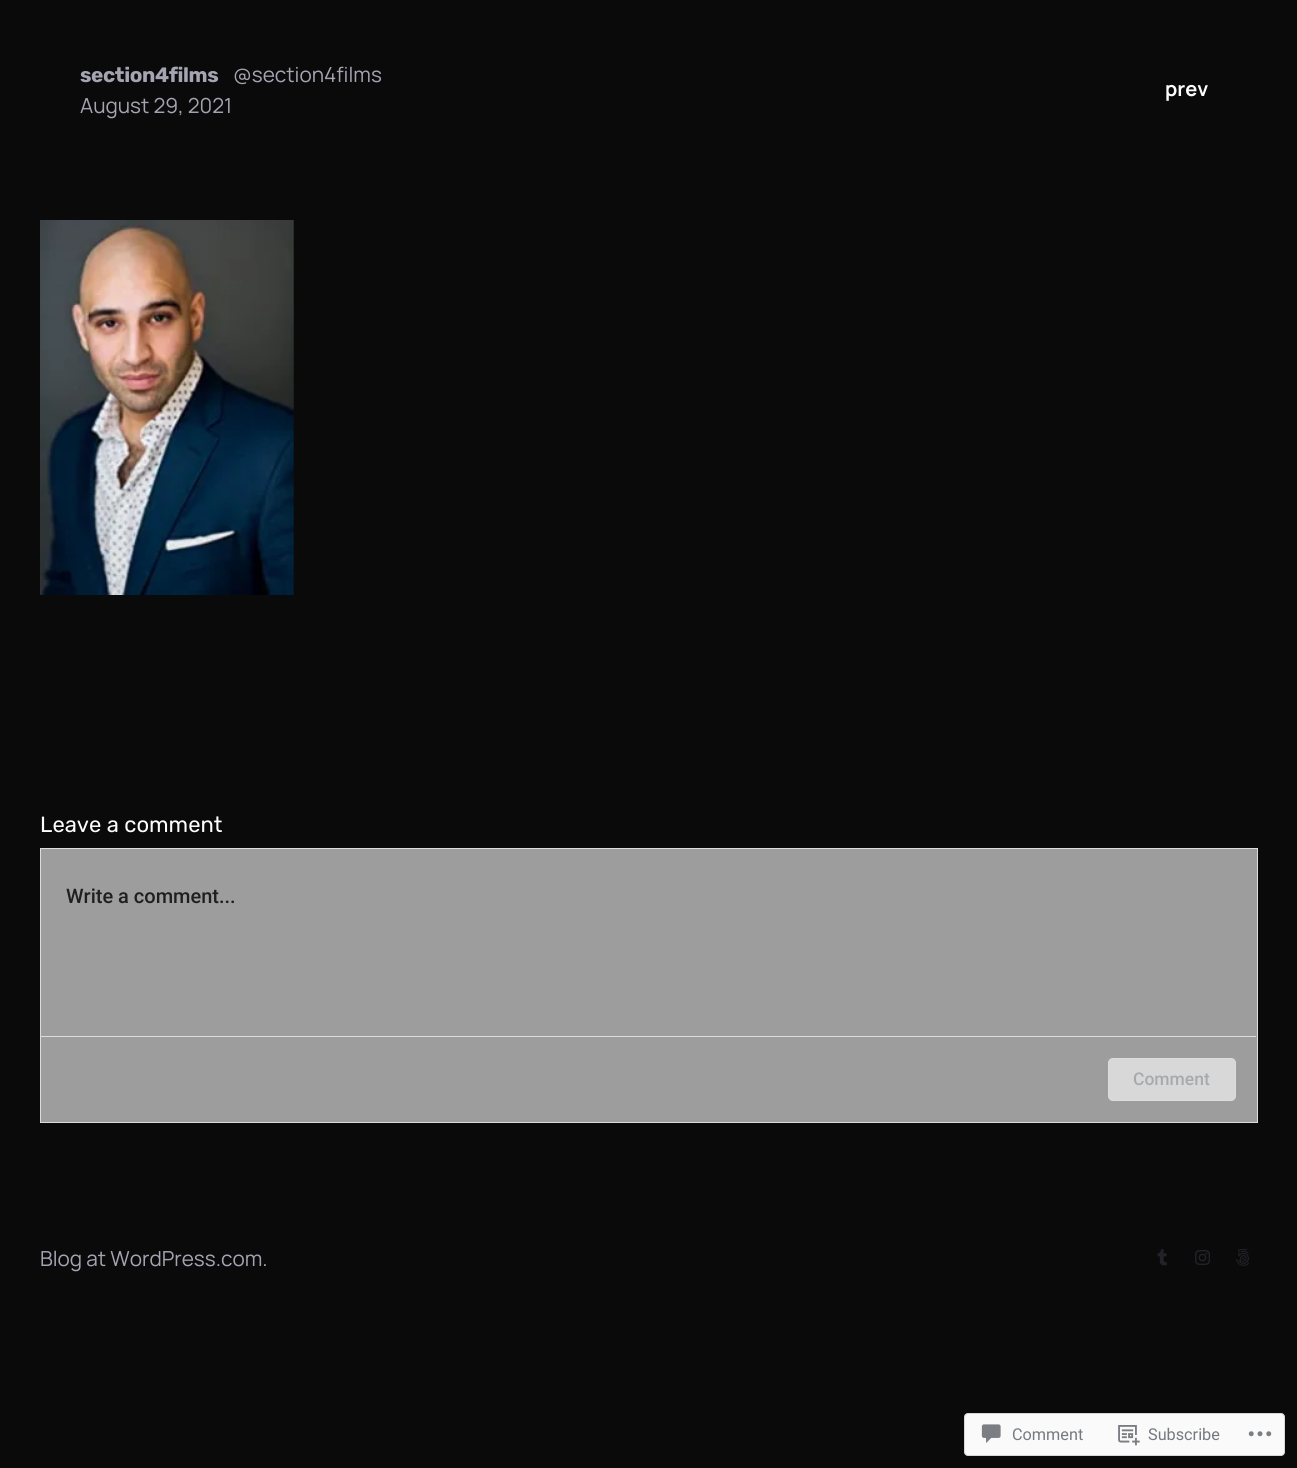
import math
import cairo



def draw_spaced(context, x, y, s, letter, word):
    context.move_to(x, y)
    for ch in s:
        context.show_text(ch)
        context.rel_move_to(letter + word * (ch == ' '), 0)


def rounded_rect(context, x, y, w, h, r):
    context.new_sub_path()
    for i, (u, v) in enumerate([(x + w - r, y + h - r), (x + r, y + h - r), (x + r, y + r), (x + w - r, y + r)]):
        context.arc(u, v, r, i * math.pi / 2, (i + 1) * math.pi / 2)
    context.close_path()


def draw_image(context, path, x, y, w, h):
    context.save()
    context.set_source_surface(cairo.ImageSurface.create_from_png(path), x, y)
    context.rectangle(x, y, w, h)
    context.fill()
    context.restore()


def draw(context):
    context.set_source_rgb(10 / 255, 10 / 255, 10 / 255)
    context.paint()
    draw_image(context, "images/1.png", 40, 220, 254, 375)
    context.set_source_rgb(157 / 255, 157 / 255, 157 / 255)
    context.rectangle(40.5, 848.5, 1217, 274)
    context.fill_preserve()
    context.set_source_rgb(220 / 255, 220 / 255, 222 / 255)
    context.set_line_width(1)
    context.stroke()
    context.rectangle(41, 1036, 1215, 1)
    context.fill()
    context.set_source_rgb(216 / 255, 216 / 255, 216 / 255)
    rounded_rect(context, 1108.5, 1058.5, 127, 42, 4.5)
    context.fill_preserve()
    context.set_source_rgb(220 / 255, 220 / 255, 222 / 255)
    context.stroke()
    draw_image(context, "images/2.png", 1157, 1249, 10, 17)
    draw_image(context, "images/3.png", 1195, 1250, 15, 15)
    draw_image(context, "images/4.png", 1236, 1249, 13, 17)
    context.set_source_rgb(250 / 255, 250 / 255, 250 / 255)
    rounded_rect(context, 964.5, 1413.5, 320, 42, 3.5)
    context.fill_preserve()
    context.set_source_rgb(216 / 255, 216 / 255, 218 / 255)
    context.stroke()
    draw_image(context, "images/5.png", 981, 1424, 20, 19)
    draw_image(context, "images/6.png", 1118, 1425, 22, 21)
    draw_image(context, "images/7.png", 1248, 1431, 24, 6)
    context.select_font_face("Rubik", cairo.FontSlant.NORMAL, cairo.FontWeight.BOLD)
    context.set_font_size(20.75)
    context.set_source_rgb(165 / 255, 164 / 255, 178 / 255)
    draw_spaced(context, 80, 82, "section4films", -0.4, 0)
    context.select_font_face("Manrope")
    context.move_to(233, 82)
    context.show_text("@section4films")
    context.move_to(80, 113)
    context.show_text("August 29, 2021")
    context.select_font_face("Manrope", cairo.FontSlant.NORMAL, cairo.FontWeight.BOLD)
    context.set_font_size(20)
    context.set_source_rgb(253 / 255, 253 / 255, 253 / 255)
    context.move_to(1165, 96)
    context.show_text("prev")
    context.select_font_face("Rubik")
    context.set_font_size(22)
    context.move_to(40, 832)
    context.show_text("Leave a comment")
    context.select_font_face("Roboto Medium")
    context.set_font_size(20)
    context.set_source_rgb(31 / 255, 31 / 255, 31 / 255)
    context.move_to(66, 903)
    context.show_text("Write a comment...")
    context.set_font_size(17.5)
    context.set_source_rgb(167 / 255, 170 / 255, 173 / 255)
    context.move_to(1133, 1085)
    context.show_text("Comment")
    context.select_font_face("Manrope")
    context.set_font_size(20.75)
    context.set_source_rgb(165 / 255, 164 / 255, 178 / 255)
    context.move_to(40, 1266)
    context.show_text("Blog at WordPress.com.")
    context.select_font_face("Roboto")
    context.set_font_size(16.25)
    context.set_source_rgb(118 / 255, 122 / 255, 128 / 255)
    context.move_to(1012, 1440)
    context.show_text("Comment")
    context.move_to(1148, 1440)
    context.show_text("Subscribe")


surface = cairo.ImageSurface(cairo.Format.RGB24, 1297, 1468)
context = cairo.Context(surface)
options = cairo.FontOptions()
options.set_hint_metrics(cairo.HintMetrics.OFF)
options.set_hint_style(cairo.HintStyle.NONE)
context.set_font_options(options)
context.set_miter_limit(4)
draw(context)
surface.write_to_png("out.png")
